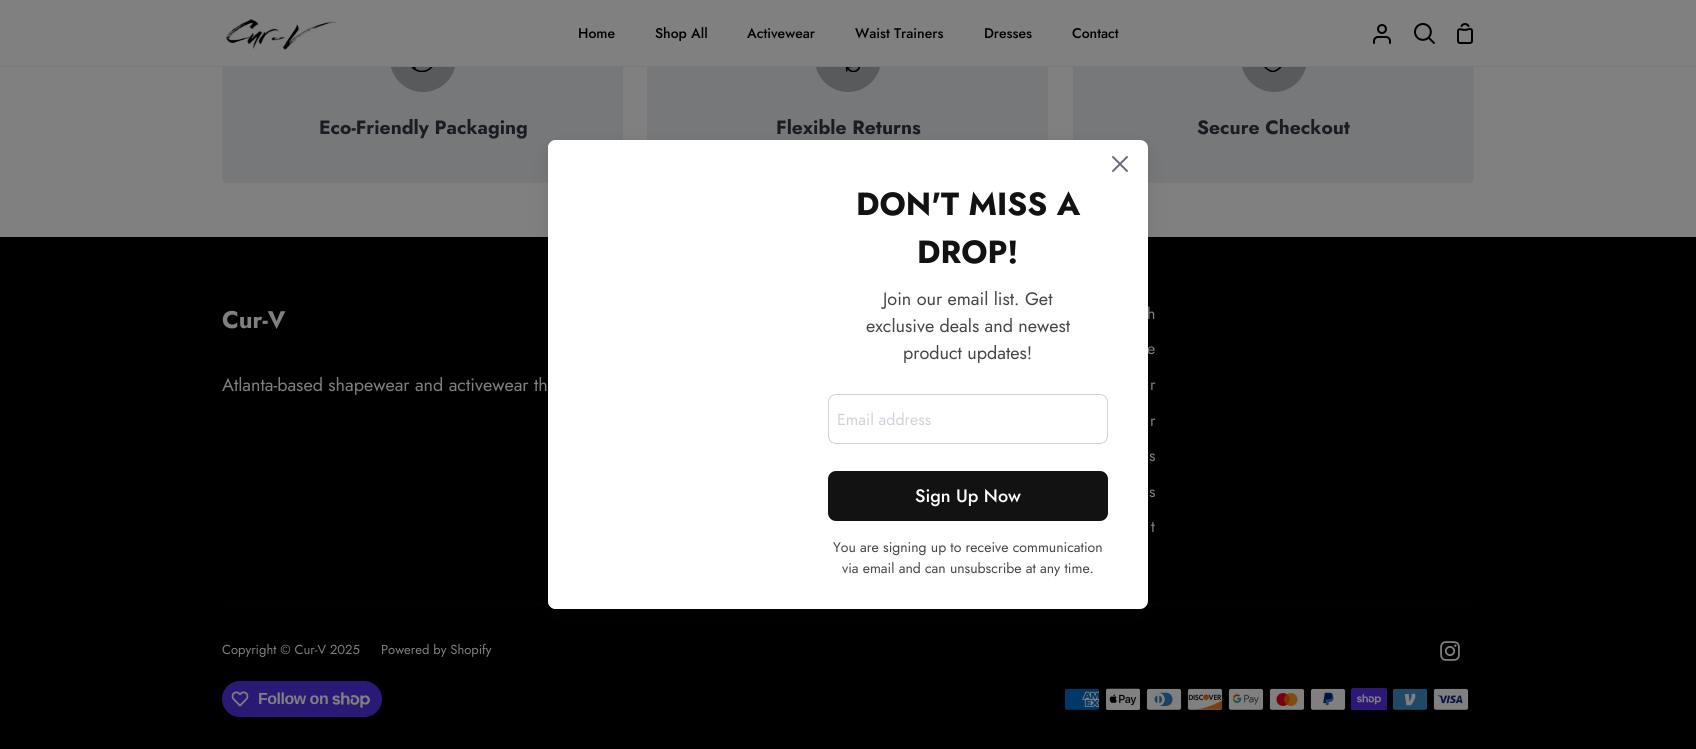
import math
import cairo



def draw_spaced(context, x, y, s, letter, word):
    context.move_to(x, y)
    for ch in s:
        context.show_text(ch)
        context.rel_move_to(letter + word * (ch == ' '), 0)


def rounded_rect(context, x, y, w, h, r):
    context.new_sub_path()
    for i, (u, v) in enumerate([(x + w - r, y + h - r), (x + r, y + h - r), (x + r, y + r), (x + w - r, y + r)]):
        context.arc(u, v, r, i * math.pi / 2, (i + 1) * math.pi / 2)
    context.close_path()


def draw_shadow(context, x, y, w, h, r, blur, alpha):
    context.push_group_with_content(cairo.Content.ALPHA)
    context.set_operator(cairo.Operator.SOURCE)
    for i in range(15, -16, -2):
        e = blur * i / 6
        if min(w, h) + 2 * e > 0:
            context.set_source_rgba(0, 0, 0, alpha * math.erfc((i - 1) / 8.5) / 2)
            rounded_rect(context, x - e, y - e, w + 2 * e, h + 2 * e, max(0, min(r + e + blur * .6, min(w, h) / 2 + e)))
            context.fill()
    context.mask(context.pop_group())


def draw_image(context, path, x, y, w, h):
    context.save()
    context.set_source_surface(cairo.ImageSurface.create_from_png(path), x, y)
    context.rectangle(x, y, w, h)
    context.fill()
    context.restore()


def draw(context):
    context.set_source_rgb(128 / 255, 128 / 255, 128 / 255)
    context.paint()
    context.set_source_rgb(119 / 255, 120 / 255, 121 / 255)
    rounded_rect(context, 222, -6, 401, 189, 6)
    context.fill()
    draw_image(context, "images/5.png", 411, 67, 22, 5)
    context.set_source_rgba(0, 0, 0, 0.25)
    context.arc(423, 59, 33, 0, 2 * math.pi)
    context.fill()
    context.set_source_rgb(119 / 255, 120 / 255, 121 / 255)
    context.rectangle(647, 67, 401, 73)
    context.fill()
    draw_image(context, "images/6.png", 845, 67, 15, 5)
    context.set_source_rgba(0, 0, 0, 0.25)
    context.arc(848, 59, 33, 0, 2 * math.pi)
    context.fill()
    context.set_source_rgb(119 / 255, 120 / 255, 121 / 255)
    rounded_rect(context, 1073, -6, 401, 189, 6)
    context.fill()
    draw_image(context, "images/7.png", 1264, 67, 18, 5)
    context.set_source_rgba(0, 0, 0, 0.25)
    context.arc(1274, 59, 33, 0, 2 * math.pi)
    context.fill()
    context.set_source_rgb(121 / 255, 121 / 255, 121 / 255)
    context.rectangle(0, 66, 1696, 1)
    context.fill()
    context.set_source_rgb(128 / 255, 128 / 255, 128 / 255)
    context.rectangle(222, 0, 1252, 66)
    context.fill()
    draw_image(context, "images/1.png", 226, 19, 111, 31)
    draw_image(context, "images/2.png", 1373, 24, 18, 20)
    draw_image(context, "images/3.png", 1414, 23, 21, 21)
    draw_image(context, "images/4.png", 1457, 23, 16, 21)
    context.set_source_rgb(0, 0, 0)
    context.rectangle(0, 237, 1696, 512)
    context.fill()
    context.set_source_rgb(2 / 255, 3 / 255, 3 / 255)
    context.rectangle(222, 604, 1252, 1)
    context.fill()
    context.set_source_rgb(18 / 255, 17 / 255, 39 / 255)
    draw_shadow(context, 548, 148, 600, 469, 8, 10, 0.1)
    draw_image(context, "images/9.png", 1440, 641, 20, 20)
    context.set_source_rgb(42 / 255, 26 / 255, 118 / 255)
    rounded_rect(context, 222, 681, 160, 36, 18)
    context.fill()
    draw_image(context, "images/10.png", 231, 691, 18, 16)
    draw_image(context, "images/11.png", 332, 692, 38, 16)
    draw_image(context, "images/12.png", 1064, 688, 36, 22)
    draw_image(context, "images/13.png", 1106, 688, 34, 22)
    draw_image(context, "images/14.png", 1146, 688, 36, 22)
    draw_image(context, "images/15.png", 1187, 688, 36, 22)
    draw_image(context, "images/16.png", 1228, 688, 36, 22)
    draw_image(context, "images/17.png", 1269, 688, 36, 22)
    draw_image(context, "images/18.png", 1310, 688, 36, 22)
    draw_image(context, "images/19.png", 1351, 688, 36, 22)
    draw_image(context, "images/20.png", 1392, 688, 36, 22)
    draw_image(context, "images/21.png", 1433, 688, 36, 22)
    context.select_font_face("Jost Medium")
    context.set_font_size(14)
    context.set_source_rgb(0, 0, 0)
    context.move_to(578, 38)
    context.show_text("Home")
    context.move_to(655, 38)
    context.show_text("Shop All")
    context.move_to(747, 38)
    context.show_text("Activewear")
    context.move_to(855, 38)
    context.show_text("Waist Trainers")
    context.move_to(984, 38)
    context.show_text("Dresses")
    context.move_to(1072, 38)
    context.show_text("Contact")
    context.select_font_face("Jost", cairo.FontSlant.NORMAL, cairo.FontWeight.BOLD)
    context.set_font_size(19.25)
    context.set_source_rgb(25 / 255, 29 / 255, 35 / 255)
    context.move_to(319, 134)
    context.show_text("Eco-Friendly Packaging")
    context.move_to(776, 134)
    context.show_text("Flexible Returns")
    context.move_to(1197, 134)
    context.show_text("Secure Checkout")
    context.set_font_size(24)
    context.set_source_rgb(128 / 255, 128 / 255, 128 / 255)
    context.move_to(222, 328)
    context.show_text("Cur-V")
    context.select_font_face("Jost")
    context.set_font_size(18)
    context.move_to(222, 391)
    context.show_text("Atlanta-based shapewear and activewear th")
    context.set_font_size(16)
    context.move_to(1147, 319)
    context.show_text("h")
    context.move_to(1147, 354)
    context.show_text("e")
    context.set_source_rgb(1, 1, 1)
    rounded_rect(context, 548, 140, 600, 469, 8)
    context.fill()
    draw_image(context, "images/8.png", 1112, 156, 16, 16)
    rounded_rect(context, 828.5, 394.5, 279, 49, 7.5)
    context.set_source_rgb(209 / 255, 209 / 255, 219 / 255)
    context.set_line_width(1)
    context.stroke()
    context.move_to(837, 425)
    context.show_text("Email address")
    context.set_source_rgb(18 / 255, 18 / 255, 18 / 255)
    rounded_rect(context, 828, 471, 280, 50, 8)
    context.fill()
    context.select_font_face("Jost Medium")
    context.set_font_size(18)
    context.set_source_rgb(1, 1, 1)
    context.move_to(915, 502)
    context.show_text("Sign Up Now")
    context.select_font_face("Jost")
    context.set_font_size(14)
    context.set_source_rgb(69 / 255, 69 / 255, 69 / 255)
    context.move_to(842, 573)
    context.show_text("via email and can unsubscribe at any time.")
    context.move_to(833, 552)
    context.show_text("You are signing up to receive communication")
    context.set_font_size(18)
    context.move_to(903, 359)
    context.show_text("product updates!")
    context.move_to(866, 332)
    context.show_text("exclusive deals and newest")
    context.move_to(883, 305)
    context.show_text("Join our email list. Get")
    context.select_font_face("Jost", cairo.FontSlant.NORMAL, cairo.FontWeight.BOLD)
    context.set_font_size(32)
    context.set_source_rgb(18 / 255, 18 / 255, 18 / 255)
    context.move_to(917, 263)
    context.show_text("DROP!")
    context.move_to(856, 215)
    context.show_text("DON'T MISS A")
    context.set_source_rgb(1, 1, 1)
    context.new_path()
    context.move_to(556, 140)
    context.line_to(788, 140)
    context.line_to(788, 609)
    context.line_to(556, 609)
    context.curve_to(551.5, 609, 548, 605.5, 548, 601)
    context.line_to(548, 148)
    context.curve_to(548, 143.5, 551.5, 140, 556, 140)
    context.close_path()
    context.fill()
    context.select_font_face("Jost")
    context.set_font_size(16)
    context.set_source_rgb(128 / 255, 128 / 255, 128 / 255)
    context.move_to(1150, 390)
    context.show_text("r")
    context.move_to(1150, 426)
    context.show_text("r")
    context.move_to(1149, 461)
    context.show_text("s")
    context.move_to(1149, 497)
    context.show_text("s")
    context.move_to(1151, 532)
    context.show_text("t")
    context.set_font_size(13)
    context.move_to(222, 654)
    context.show_text("Copyright © Cur-V 2025")
    context.move_to(381, 654)
    context.show_text("Powered by Shopify")
    context.select_font_face("Liberation Sans", cairo.FontSlant.NORMAL, cairo.FontWeight.BOLD)
    context.set_font_size(16)
    draw_spaced(context, 258, 704, "Follow on", -0.5, 0)


surface = cairo.ImageSurface(cairo.Format.RGB24, 1696, 749)
context = cairo.Context(surface)
options = cairo.FontOptions()
options.set_hint_metrics(cairo.HintMetrics.OFF)
options.set_hint_style(cairo.HintStyle.NONE)
context.set_font_options(options)
context.set_miter_limit(4)
draw(context)
surface.write_to_png("out.png")
